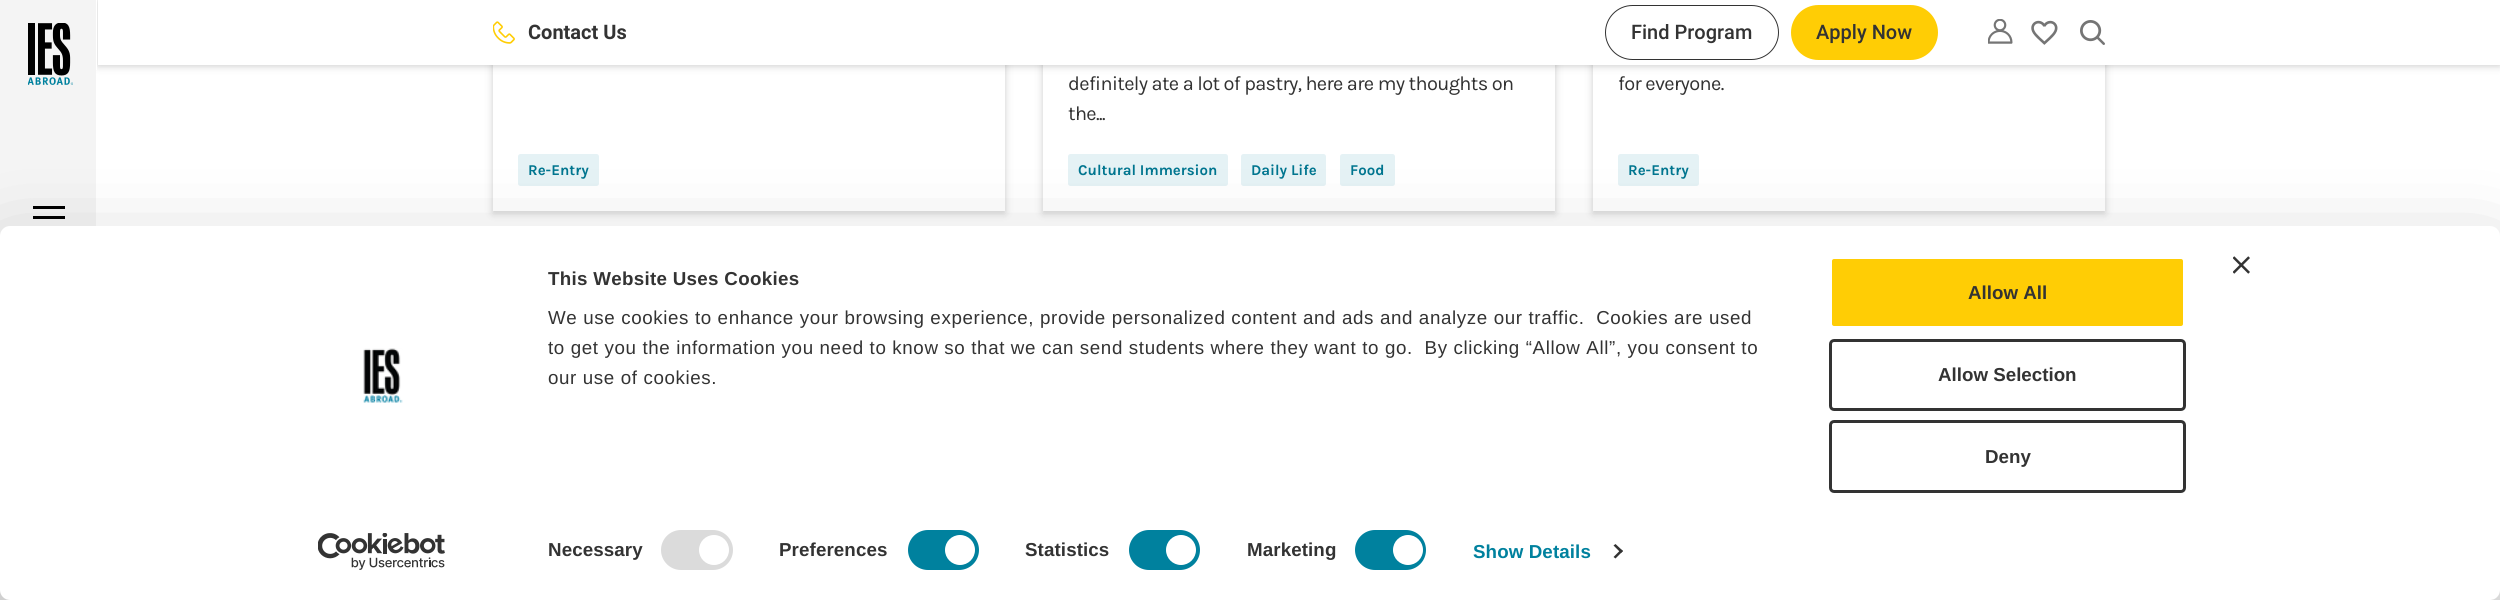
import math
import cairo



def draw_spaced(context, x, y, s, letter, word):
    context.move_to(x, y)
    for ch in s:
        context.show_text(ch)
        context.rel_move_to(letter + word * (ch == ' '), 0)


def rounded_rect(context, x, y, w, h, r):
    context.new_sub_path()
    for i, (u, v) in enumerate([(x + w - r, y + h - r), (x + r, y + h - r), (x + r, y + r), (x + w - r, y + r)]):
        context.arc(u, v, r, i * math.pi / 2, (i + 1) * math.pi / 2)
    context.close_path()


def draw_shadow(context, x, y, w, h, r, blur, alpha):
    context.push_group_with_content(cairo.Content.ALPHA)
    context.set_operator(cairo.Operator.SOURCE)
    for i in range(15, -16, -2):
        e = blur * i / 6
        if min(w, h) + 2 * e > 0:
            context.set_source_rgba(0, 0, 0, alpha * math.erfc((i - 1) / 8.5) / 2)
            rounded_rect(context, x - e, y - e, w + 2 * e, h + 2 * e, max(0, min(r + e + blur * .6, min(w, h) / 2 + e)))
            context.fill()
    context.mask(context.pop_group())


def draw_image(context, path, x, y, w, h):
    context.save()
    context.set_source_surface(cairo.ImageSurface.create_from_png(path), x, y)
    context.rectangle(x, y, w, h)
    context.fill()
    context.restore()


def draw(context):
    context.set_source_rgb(1, 1, 1)
    context.paint()
    context.set_source_rgb(0, 0, 0)
    draw_shadow(context, 98, 1, 2402, 65, 0, 4, 0.2)
    context.set_source_rgb(244 / 255, 244 / 255, 244 / 255)
    context.rectangle(0, 0, 96, 600)
    context.fill()
    context.set_source_rgb(1, 1, 1)
    context.rectangle(96, 0, 1, 70)
    context.fill()
    draw_image(context, "images/1.png", 28, 23, 45, 62)
    context.set_source_rgb(0, 0, 0)
    context.rectangle(33, 206, 32, 3)
    context.fill()
    context.rectangle(33, 216, 32, 3)
    context.fill()
    context.save()
    context.set_fill_rule(cairo.FillRule.EVEN_ODD)
    context.new_path()
    context.move_to(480, 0)
    context.line_to(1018, 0)
    context.line_to(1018, 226)
    context.line_to(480, 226)
    context.close_path()
    context.move_to(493, -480)
    context.line_to(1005, -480)
    context.line_to(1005, 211)
    context.line_to(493, 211)
    context.close_path()
    context.clip()
    context.set_source_rgb(0, 0, 0)
    draw_shadow(context, 493, -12, 512, 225, 0, 4, 0.2)
    context.restore()
    context.save()
    context.set_fill_rule(cairo.FillRule.EVEN_ODD)
    context.new_path()
    context.move_to(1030, 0)
    context.line_to(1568, 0)
    context.line_to(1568, 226)
    context.line_to(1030, 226)
    context.close_path()
    context.move_to(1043, -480)
    context.line_to(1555, -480)
    context.line_to(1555, 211)
    context.line_to(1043, 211)
    context.close_path()
    context.clip()
    context.set_source_rgb(0, 0, 0)
    draw_shadow(context, 1043, -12, 512, 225, 0, 4, 0.2)
    context.restore()
    context.save()
    context.set_fill_rule(cairo.FillRule.EVEN_ODD)
    context.new_path()
    context.move_to(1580, 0)
    context.line_to(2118, 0)
    context.line_to(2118, 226)
    context.line_to(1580, 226)
    context.close_path()
    context.move_to(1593, -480)
    context.line_to(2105, -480)
    context.line_to(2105, 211)
    context.line_to(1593, 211)
    context.close_path()
    context.clip()
    context.set_source_rgb(0, 0, 0)
    draw_shadow(context, 1593, -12, 512, 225, 0, 4, 0.2)
    context.restore()
    context.set_source_rgb(1, 1, 1)
    context.rectangle(98, 0, 2402, 65)
    context.fill()
    draw_image(context, "images/2.png", 493, 21, 22, 23)
    rounded_rect(context, 1605.5, 5.5, 173, 54, 27)
    context.set_source_rgb(51 / 255, 51 / 255, 51 / 255)
    context.set_line_width(1)
    context.stroke()
    context.set_source_rgb(1, 205 / 255, 5 / 255)
    rounded_rect(context, 1791, 5, 147, 55, 27.5)
    context.fill()
    draw_image(context, "images/3.png", 1988, 19, 25, 25)
    draw_image(context, "images/4.png", 2031, 20, 27, 25)
    draw_image(context, "images/5.png", 2080, 20, 25, 25)
    context.set_source_rgb(229 / 255, 242 / 255, 245 / 255)
    rounded_rect(context, 518, 154, 81, 32, 2.5)
    context.fill()
    rounded_rect(context, 1068, 154, 160, 32, 2.5)
    context.fill()
    rounded_rect(context, 1241, 154, 85, 32, 2.5)
    context.fill()
    rounded_rect(context, 1340, 154, 55, 32, 2.5)
    context.fill()
    rounded_rect(context, 1618, 154, 81, 32, 2.5)
    context.fill()
    context.set_source_rgb(0, 0, 0)
    draw_shadow(context, 0, 264, 2500, 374, 10, 44, 0.3)
    context.set_source_rgb(1, 1, 1)
    rounded_rect(context, 0, 226, 2500, 374, 10)
    context.fill()
    draw_image(context, "images/6.png", 2233, 256, 17, 18)
    draw_image(context, "images/7.png", 363, 348, 40, 55)
    draw_image(context, "images/8.png", 318, 533, 127, 37)
    context.set_source_rgb(219 / 255, 219 / 255, 219 / 255)
    rounded_rect(context, 661, 530, 72, 40, 20)
    context.fill()
    context.set_source_rgb(1, 1, 1)
    context.arc(714, 550, 15, 0, 2 * math.pi)
    context.fill()
    context.set_source_rgb(0, 129 / 255, 158 / 255)
    rounded_rect(context, 908, 530, 71, 40, 20)
    context.fill()
    context.set_source_rgb(1, 1, 1)
    context.arc(960, 550, 15, 0, 2 * math.pi)
    context.fill()
    context.set_source_rgb(0, 129 / 255, 158 / 255)
    rounded_rect(context, 1129, 530, 71, 40, 20)
    context.fill()
    context.set_source_rgb(1, 1, 1)
    context.arc(1181, 550, 15, 0, 2 * math.pi)
    context.fill()
    context.set_source_rgb(0, 129 / 255, 158 / 255)
    rounded_rect(context, 1355, 530, 71, 40, 20)
    context.fill()
    context.set_source_rgb(1, 1, 1)
    context.arc(1408, 550, 15, 0, 2 * math.pi)
    context.fill()
    context.set_source_rgb(51 / 255, 51 / 255, 51 / 255)
    context.new_path()
    context.move_to(1615.5, 544)
    context.line_to(1623, 551)
    context.line_to(1621, 553)
    context.line_to(1613.5, 545.5)
    context.close_path()
    context.fill()
    context.new_path()
    context.move_to(1621, 549.5)
    context.line_to(1623, 551)
    context.line_to(1615.5, 558.5)
    context.line_to(1613.5, 557)
    context.close_path()
    context.fill()
    context.set_source_rgb(1, 205 / 255, 5 / 255)
    rounded_rect(context, 1830.5, 257.5, 354, 70, 3.5)
    context.fill_preserve()
    context.set_source_rgb(1, 1, 1)
    context.set_line_width(3)
    context.stroke()
    rounded_rect(context, 1830.5, 340.5, 354, 69, 3.5)
    context.set_source_rgb(51 / 255, 51 / 255, 51 / 255)
    context.stroke()
    rounded_rect(context, 1830.5, 421.5, 354, 70, 3.5)
    context.stroke()
    context.select_font_face("Roboto", cairo.FontSlant.NORMAL, cairo.FontWeight.BOLD)
    context.set_font_size(20)
    context.move_to(528, 39)
    context.show_text("Contact Us")
    context.select_font_face("Roboto Medium")
    context.move_to(1631, 39)
    context.show_text("Find Program")
    context.move_to(1816, 39)
    context.show_text("Apply Now")
    context.select_font_face("Karla", cairo.FontSlant.NORMAL, cairo.FontWeight.BOLD)
    context.set_font_size(15)
    context.set_source_rgb(0, 117 / 255, 143 / 255)
    context.move_to(528, 175)
    context.show_text("Re-Entry")
    context.select_font_face("Karla")
    context.set_font_size(20)
    context.set_source_rgb(51 / 255, 51 / 255, 51 / 255)
    draw_spaced(context, 1068, 90, "definitely ate a lot of pastry, here are my thoughts on", -0.62, 0)
    draw_spaced(context, 1068, 120, "the...", -0.62, 0)
    context.select_font_face("Karla", cairo.FontSlant.NORMAL, cairo.FontWeight.BOLD)
    context.set_font_size(15)
    context.set_source_rgb(0, 117 / 255, 143 / 255)
    context.move_to(1078, 175)
    context.show_text("Cultural Immersion")
    context.move_to(1251, 175)
    context.show_text("Daily Life")
    context.move_to(1350, 175)
    context.show_text("Food")
    context.select_font_face("Karla")
    context.set_font_size(20)
    context.set_source_rgb(51 / 255, 51 / 255, 51 / 255)
    draw_spaced(context, 1618, 90, "for everyone.", -0.62, 0)
    context.select_font_face("Karla", cairo.FontSlant.NORMAL, cairo.FontWeight.BOLD)
    context.set_font_size(15)
    context.set_source_rgb(0, 117 / 255, 143 / 255)
    context.move_to(1628, 175)
    context.show_text("Re-Entry")
    context.select_font_face("Liberation Sans", cairo.FontSlant.NORMAL, cairo.FontWeight.BOLD)
    context.set_font_size(18.75)
    context.set_source_rgb(51 / 255, 51 / 255, 51 / 255)
    draw_spaced(context, 548, 285, "This Website Uses Cookies", 0.3, 0)
    context.select_font_face("Liberation Sans")
    draw_spaced(context, 548, 324, "We use cookies to enhance your browsing experience, provide personalized content and ads and analyze our traffic.  Cookies are used", 0.62, 0)
    draw_spaced(context, 548, 354, "to get you the information you need to know so that we can send students where they want to go.  By clicking “Allow All”, you consent to", 0.62, 0)
    draw_spaced(context, 548, 384, "our use of cookies.", 0.62, 0)
    context.select_font_face("Liberation Sans", cairo.FontSlant.NORMAL, cairo.FontWeight.BOLD)
    draw_spaced(context, 548, 556, "Necessary", 0.1, 0)
    draw_spaced(context, 779, 556, "Preferences", 0.1, 0)
    draw_spaced(context, 1025, 556, "Statistics", 0.1, 0)
    draw_spaced(context, 1247, 556, "Marketing", 0.1, 0)
    context.set_source_rgb(0, 129 / 255, 158 / 255)
    draw_spaced(context, 1473, 558, "Show Details", 0.1, 0)
    context.set_source_rgb(51 / 255, 51 / 255, 51 / 255)
    context.move_to(1968, 299)
    context.show_text("Allow All")
    context.move_to(1938, 381)
    context.show_text("Allow Selection")
    context.move_to(1985, 463)
    context.show_text("Deny")


surface = cairo.ImageSurface(cairo.Format.RGB24, 2500, 600)
context = cairo.Context(surface)
options = cairo.FontOptions()
options.set_hint_metrics(cairo.HintMetrics.OFF)
options.set_hint_style(cairo.HintStyle.NONE)
context.set_font_options(options)
context.set_miter_limit(4)
draw(context)
surface.write_to_png("out.png")
